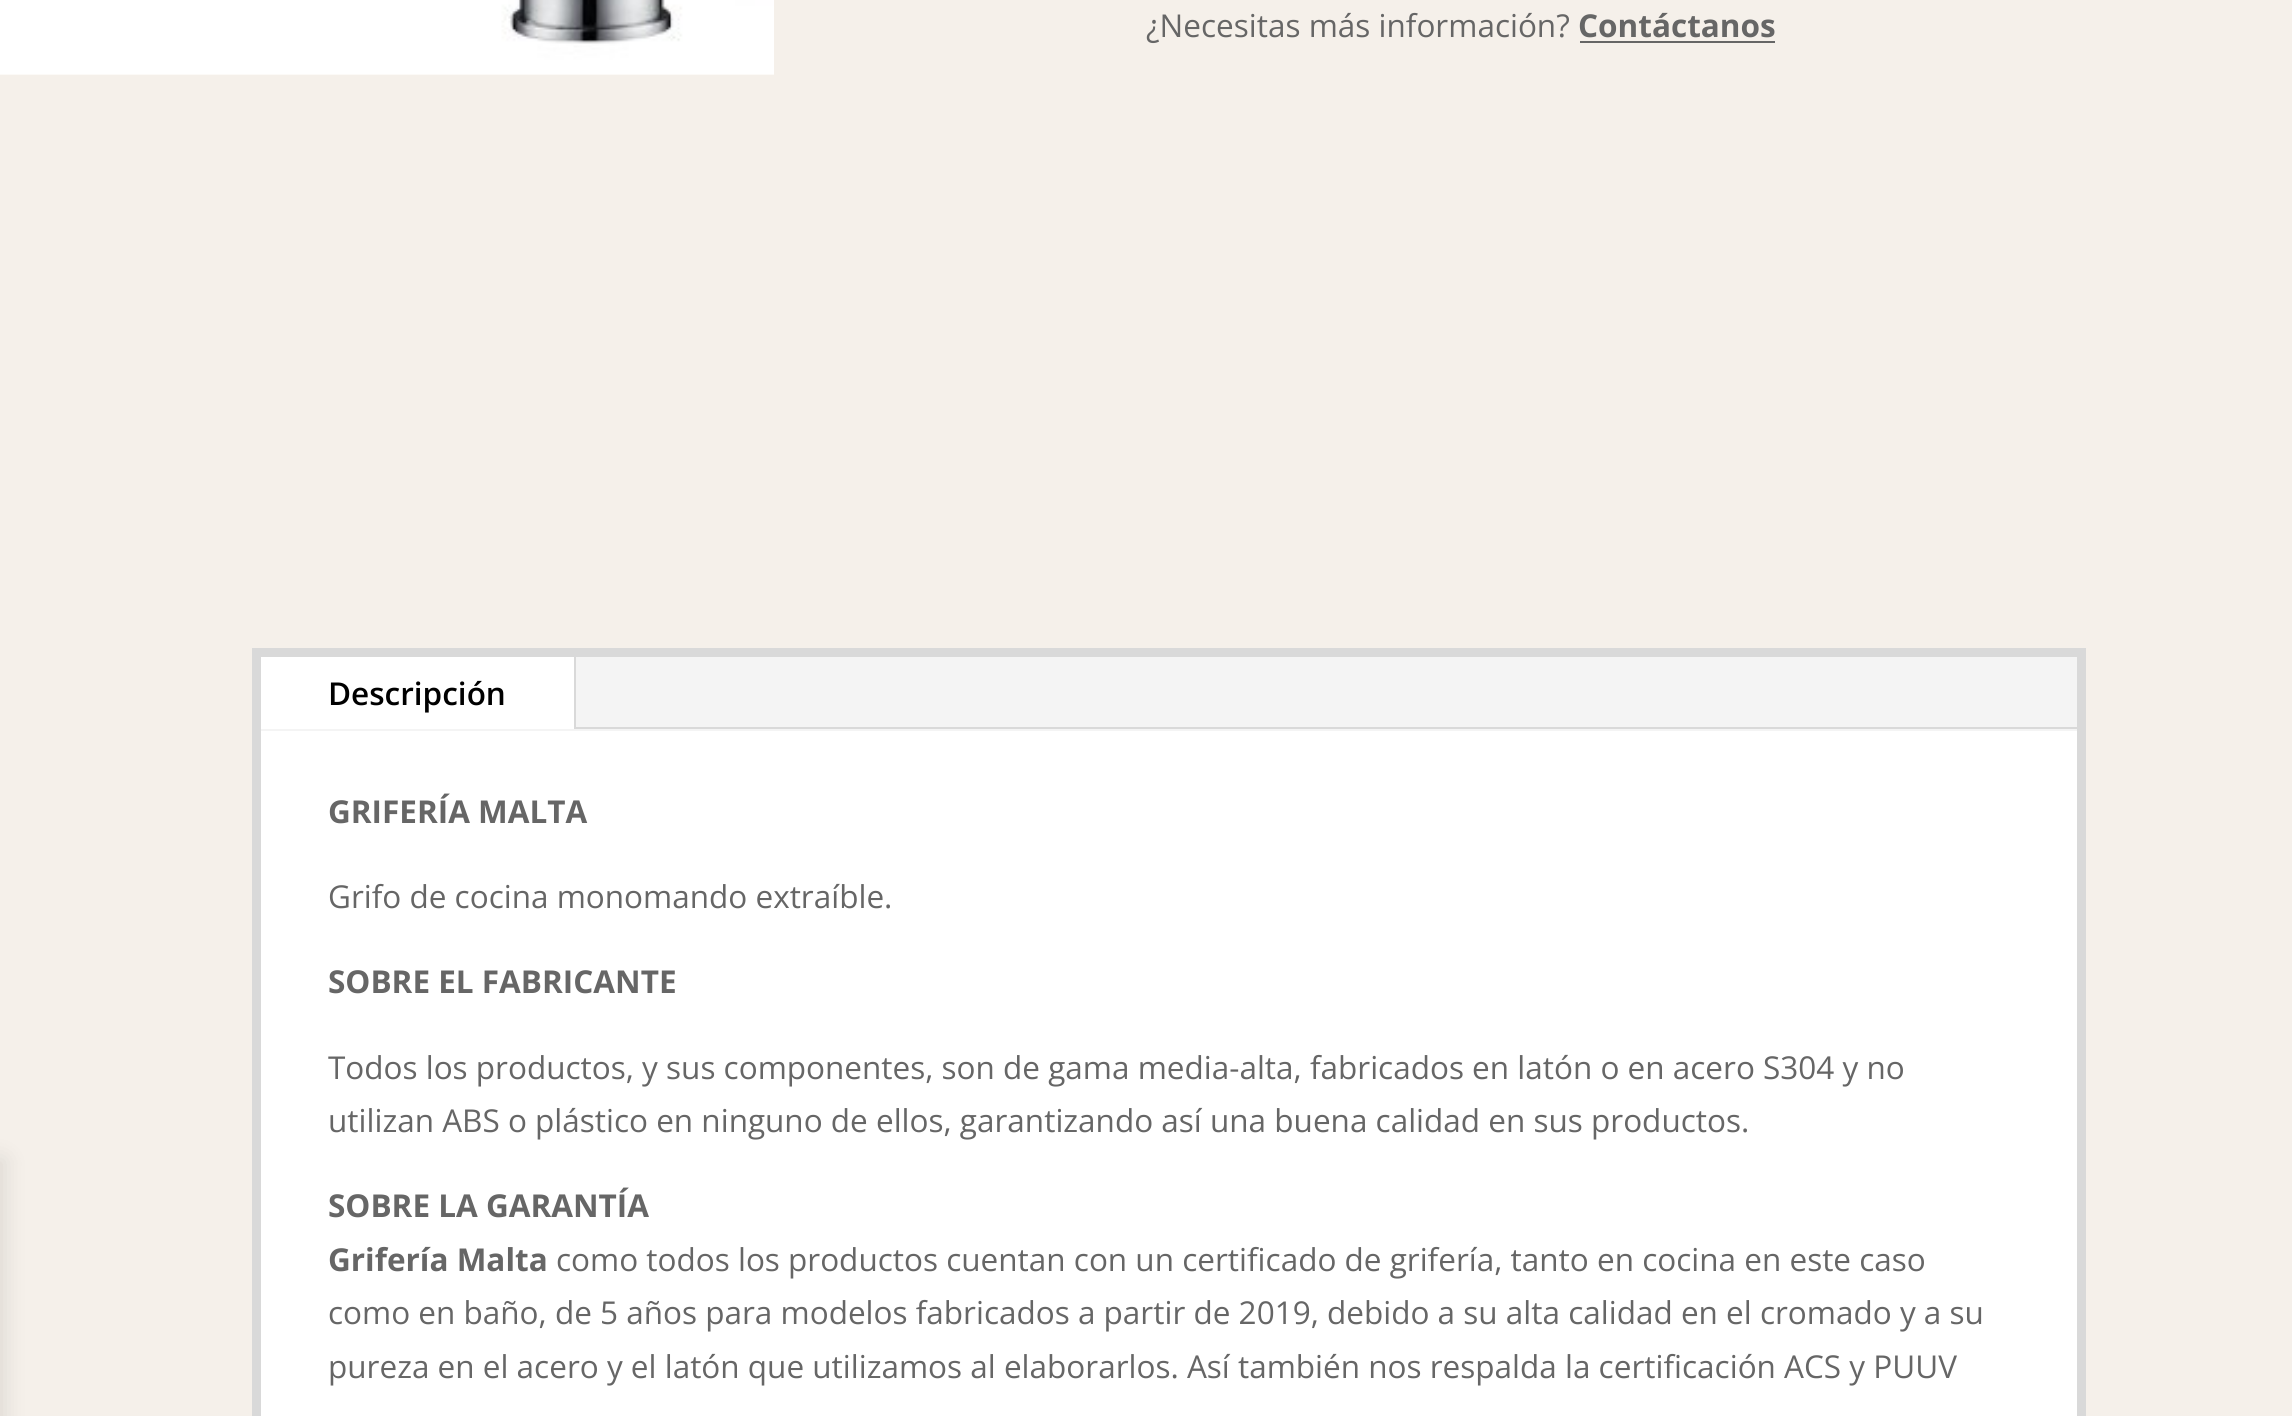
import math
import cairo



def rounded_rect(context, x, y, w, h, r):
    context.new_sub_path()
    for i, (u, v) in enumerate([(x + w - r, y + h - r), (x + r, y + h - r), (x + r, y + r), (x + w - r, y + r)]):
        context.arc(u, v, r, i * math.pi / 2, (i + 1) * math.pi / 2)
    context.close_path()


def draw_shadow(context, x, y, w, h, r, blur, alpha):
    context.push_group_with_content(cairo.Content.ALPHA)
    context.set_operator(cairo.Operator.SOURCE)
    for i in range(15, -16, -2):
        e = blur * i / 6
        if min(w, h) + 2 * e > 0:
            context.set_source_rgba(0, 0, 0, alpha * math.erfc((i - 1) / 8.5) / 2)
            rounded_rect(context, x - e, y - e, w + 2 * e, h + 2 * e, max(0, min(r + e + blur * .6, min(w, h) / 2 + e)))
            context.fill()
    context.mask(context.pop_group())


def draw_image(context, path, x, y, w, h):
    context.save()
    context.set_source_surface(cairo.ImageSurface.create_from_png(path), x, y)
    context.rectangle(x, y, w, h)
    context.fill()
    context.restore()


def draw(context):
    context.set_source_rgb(245 / 255, 240 / 255, 234 / 255)
    context.paint()
    context.set_source_rgb(0, 0, 0)
    draw_shadow(context, -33, 1159, 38, 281, 0, 11, 0.1)
    draw_image(context, "images/2.png", 0, 74, 774, 1)
    draw_image(context, "images/1.png", 0, 0, 774, 75)
    context.set_source_rgb(102 / 255, 102 / 255, 102 / 255)
    context.rectangle(1580, 41, 195, 2)
    context.fill()
    context.rectangle(256.5, 652.5, 1825, 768)
    context.set_source_rgb(217 / 255, 217 / 255, 217 / 255)
    context.set_line_width(9)
    context.stroke()
    context.set_source_rgb(244 / 255, 244 / 255, 244 / 255)
    context.rectangle(261, 657, 1816, 74)
    context.fill()
    context.set_source_rgb(1, 1, 1)
    context.rectangle(261, 657, 313, 72)
    context.fill()
    context.set_source_rgb(217 / 255, 217 / 255, 217 / 255)
    context.rectangle(574, 657, 2, 72)
    context.fill()
    context.rectangle(576, 727, 1501, 2)
    context.fill()
    context.set_source_rgb(1, 1, 1)
    context.rectangle(261, 731, 1816, 685)
    context.fill()
    context.select_font_face("Open Sans")
    context.set_font_size(31.5)
    context.set_source_rgb(102 / 255, 102 / 255, 102 / 255)
    context.move_to(1146, 37)
    context.show_text("¿Necesitas más información?")
    context.select_font_face("Open Sans", cairo.FontSlant.NORMAL, cairo.FontWeight.BOLD)
    context.move_to(1578, 37)
    context.show_text("Contáctanos")
    context.select_font_face("Open Sans SemiBold")
    context.set_source_rgb(0, 0, 0)
    context.move_to(328, 705)
    context.show_text("Descripción")
    context.select_font_face("Open Sans", cairo.FontSlant.NORMAL, cairo.FontWeight.BOLD)
    context.set_source_rgb(102 / 255, 102 / 255, 102 / 255)
    context.move_to(328, 823)
    context.show_text("GRIFERÍA MALTA")
    context.select_font_face("Open Sans")
    context.move_to(328, 908)
    context.show_text("Grifo de cocina monomando extraíble.")
    context.select_font_face("Open Sans", cairo.FontSlant.NORMAL, cairo.FontWeight.BOLD)
    context.move_to(328, 993)
    context.show_text("SOBRE EL FABRICANTE")
    context.select_font_face("Open Sans")
    context.move_to(328, 1079)
    context.show_text("Todos los productos, y sus componentes, son de gama media-alta, fabricados en latón o en acero S304 y no")
    context.move_to(328, 1132)
    context.show_text("utilizan ABS o plástico en ninguno de ellos, garantizando así una buena calidad en sus productos.")
    context.select_font_face("Open Sans", cairo.FontSlant.NORMAL, cairo.FontWeight.BOLD)
    context.move_to(328, 1217)
    context.show_text("SOBRE LA GARANTÍA")
    context.move_to(328, 1271)
    context.show_text("Grifería Malta")
    context.select_font_face("Open Sans")
    context.move_to(556, 1271)
    context.show_text("como todos los productos cuentan con un certificado de grifería, tanto en cocina en este caso")
    context.move_to(328, 1324)
    context.show_text("como en baño, de 5 años para modelos fabricados a partir de 2019, debido a su alta calidad en el cromado y a su")
    context.move_to(328, 1378)
    context.show_text("pureza en el acero y el latón que utilizamos al elaborarlos. Así también nos respalda la certificación ACS y PUUV")


surface = cairo.ImageSurface(cairo.Format.RGB24, 2292, 1416)
context = cairo.Context(surface)
options = cairo.FontOptions()
options.set_hint_metrics(cairo.HintMetrics.OFF)
options.set_hint_style(cairo.HintStyle.NONE)
context.set_font_options(options)
context.set_miter_limit(4)
draw(context)
surface.write_to_png("out.png")
